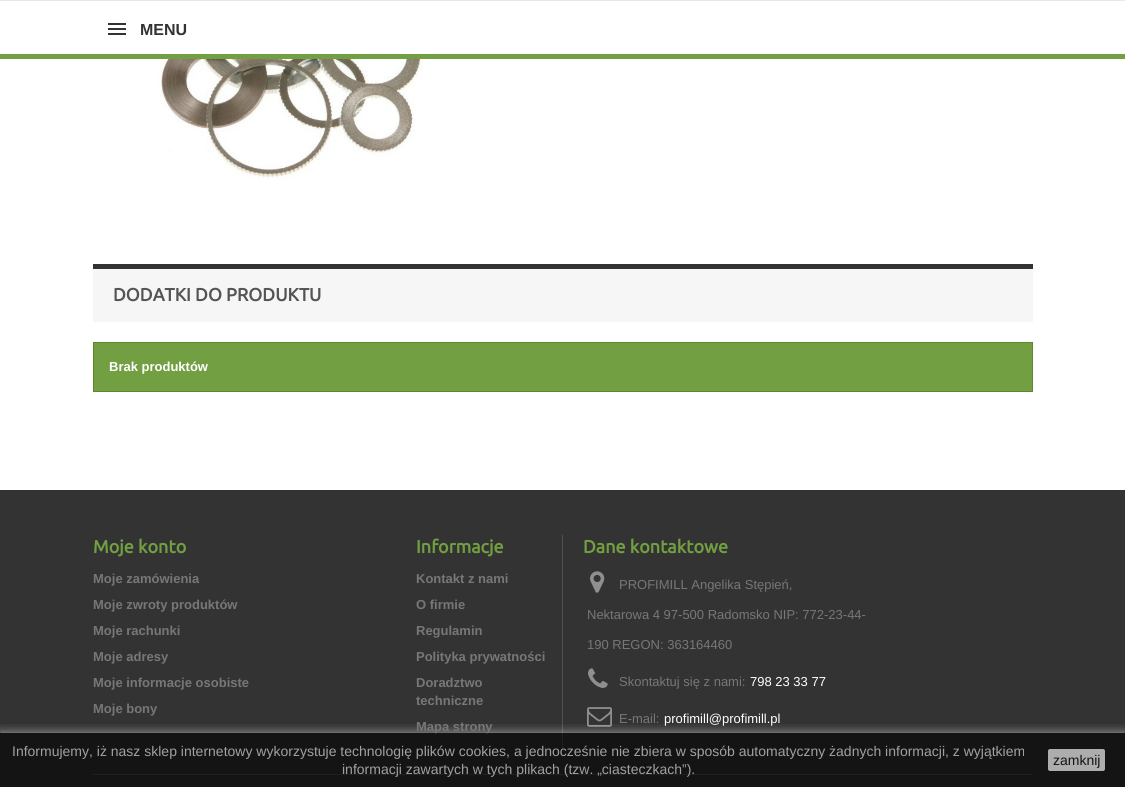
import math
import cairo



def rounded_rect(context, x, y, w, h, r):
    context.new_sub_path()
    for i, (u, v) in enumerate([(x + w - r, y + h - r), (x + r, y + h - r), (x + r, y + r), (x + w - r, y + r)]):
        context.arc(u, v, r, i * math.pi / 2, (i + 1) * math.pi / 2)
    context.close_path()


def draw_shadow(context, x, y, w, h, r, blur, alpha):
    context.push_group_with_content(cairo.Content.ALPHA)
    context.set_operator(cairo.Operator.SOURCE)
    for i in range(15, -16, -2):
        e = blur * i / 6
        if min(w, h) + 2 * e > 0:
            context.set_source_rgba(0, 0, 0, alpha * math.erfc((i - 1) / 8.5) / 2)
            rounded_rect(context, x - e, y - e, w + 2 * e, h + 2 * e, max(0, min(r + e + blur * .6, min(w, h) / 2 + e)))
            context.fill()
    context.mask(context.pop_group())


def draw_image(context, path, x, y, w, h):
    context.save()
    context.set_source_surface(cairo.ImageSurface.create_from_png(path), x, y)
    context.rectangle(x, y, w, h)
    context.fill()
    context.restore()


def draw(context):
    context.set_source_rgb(51 / 255, 51 / 255, 51 / 255)
    context.paint()
    context.set_source_rgb(1, 1, 1)
    context.rectangle(0, 1, 1125, 53)
    context.fill()
    context.set_source_rgb(231 / 255, 231 / 255, 231 / 255)
    context.rectangle(0, 0, 1125, 1)
    context.fill()
    context.set_source_rgb(113 / 255, 159 / 255, 65 / 255)
    context.rectangle(0, 54, 1125, 5)
    context.fill()
    context.set_source_rgb(51 / 255, 51 / 255, 51 / 255)
    context.rectangle(108, 23, 18, 2)
    context.fill()
    context.rectangle(108, 28, 18, 2)
    context.fill()
    context.rectangle(108, 33, 18, 2)
    context.fill()
    context.set_source_rgb(1, 1, 1)
    context.rectangle(0, 59, 1125, 431)
    context.fill()
    draw_image(context, "images/1.png", 159, 59, 264, 120)
    context.set_source_rgb(246 / 255, 246 / 255, 246 / 255)
    context.rectangle(93, 269, 940, 53)
    context.fill()
    context.set_source_rgb(51 / 255, 51 / 255, 51 / 255)
    context.rectangle(93, 264, 940, 5)
    context.fill()
    context.set_source_rgb(113 / 255, 159 / 255, 65 / 255)
    context.rectangle(93.5, 342.5, 939, 49)
    context.fill_preserve()
    context.set_source_rgb(95 / 255, 134 / 255, 47 / 255)
    context.set_line_width(1)
    context.stroke()
    context.set_source_rgb(81 / 255, 81 / 255, 81 / 255)
    context.rectangle(562, 535, 1, 215)
    context.fill()
    draw_image(context, "images/2.png", 590, 571, 15, 22)
    draw_image(context, "images/3.png", 588, 668, 20, 20)
    draw_image(context, "images/4.png", 587, 707, 25, 20)
    context.rectangle(93, 774, 940, 1)
    context.fill()
    context.save()
    context.rectangle(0, 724, 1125, 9)
    context.clip()
    context.set_source_rgb(1, 1, 1)
    draw_shadow(context, 0, 733, 1125, 54, 0, 5, 0.6)
    context.restore()
    context.select_font_face("Liberation Sans", cairo.FontSlant.NORMAL, cairo.FontWeight.BOLD)
    context.set_font_size(16)
    context.set_source_rgb(51 / 255, 51 / 255, 51 / 255)
    context.move_to(140, 35)
    context.show_text("MENU")
    context.select_font_face("Ubuntu", cairo.FontSlant.NORMAL, cairo.FontWeight.BOLD)
    context.set_font_size(18)
    context.set_source_rgb(85 / 255, 84 / 255, 84 / 255)
    context.move_to(113, 301)
    context.show_text("DODATKI DO PRODUKTU")
    context.select_font_face("Liberation Sans", cairo.FontSlant.NORMAL, cairo.FontWeight.BOLD)
    context.set_font_size(13)
    context.set_source_rgb(1, 1, 1)
    context.move_to(109, 371)
    context.show_text("Brak produktów")
    context.select_font_face("Ubuntu", cairo.FontSlant.NORMAL, cairo.FontWeight.BOLD)
    context.set_font_size(18)
    context.set_source_rgb(113 / 255, 159 / 255, 65 / 255)
    context.move_to(93, 553)
    context.show_text("Moje konto")
    context.select_font_face("Liberation Sans", cairo.FontSlant.NORMAL, cairo.FontWeight.BOLD)
    context.set_font_size(13)
    context.set_source_rgb(119 / 255, 119 / 255, 119 / 255)
    context.move_to(93, 583)
    context.show_text("Moje zamówienia")
    context.move_to(93, 609)
    context.show_text("Moje zwroty produktów")
    context.move_to(93, 635)
    context.show_text("Moje rachunki")
    context.move_to(93, 661)
    context.show_text("Moje adresy")
    context.move_to(93, 687)
    context.show_text("Moje informacje osobiste")
    context.move_to(93, 713)
    context.show_text("Moje bony")
    context.select_font_face("Ubuntu", cairo.FontSlant.NORMAL, cairo.FontWeight.BOLD)
    context.set_font_size(18)
    context.set_source_rgb(113 / 255, 159 / 255, 65 / 255)
    context.move_to(416, 553)
    context.show_text("Informacje")
    context.select_font_face("Liberation Sans", cairo.FontSlant.NORMAL, cairo.FontWeight.BOLD)
    context.set_font_size(13)
    context.set_source_rgb(119 / 255, 119 / 255, 119 / 255)
    context.move_to(416, 583)
    context.show_text("Kontakt z nami")
    context.move_to(416, 609)
    context.show_text("O firmie")
    context.move_to(416, 635)
    context.show_text("Regulamin")
    context.move_to(416, 661)
    context.show_text("Polityka prywatności")
    context.move_to(416, 687)
    context.show_text("Doradztwo")
    context.move_to(416, 705)
    context.show_text("techniczne")
    context.move_to(416, 731)
    context.show_text("Mapa strony")
    context.select_font_face("Ubuntu", cairo.FontSlant.NORMAL, cairo.FontWeight.BOLD)
    context.set_font_size(18)
    context.set_source_rgb(113 / 255, 159 / 255, 65 / 255)
    context.move_to(583, 553)
    context.show_text("Dane kontaktowe")
    context.select_font_face("Liberation Sans")
    context.set_font_size(13)
    context.set_source_rgb(119 / 255, 119 / 255, 119 / 255)
    context.move_to(619, 589)
    context.show_text("PROFIMILL Angelika Stępień,")
    context.move_to(587, 619)
    context.show_text("Nektarowa 4 97-500 Radomsko NIP: 772-23-44-")
    context.move_to(587, 649)
    context.show_text("190 REGON: 363164460")
    context.move_to(619, 686)
    context.show_text("Skontaktuj się z nami:")
    context.set_source_rgb(1, 1, 1)
    context.move_to(750, 686)
    context.show_text("798 23 33 77")
    context.set_source_rgb(119 / 255, 119 / 255, 119 / 255)
    context.move_to(619, 723)
    context.show_text("E-mail:")
    context.set_source_rgb(1, 1, 1)
    context.move_to(664, 723)
    context.show_text("profimill@profimill.pl")
    context.set_source_rgba(0, 0, 0, 0.6)
    context.rectangle(0, 733, 1125, 54)
    context.fill()
    context.set_font_size(14)
    context.set_source_rgb(161 / 255, 161 / 255, 161 / 255)
    context.move_to(12, 756)
    context.show_text("Informujemy, iż nasz sklep internetowy wykorzystuje technologię plików cookies, a jednocześnie nie zbiera w sposób automatyczny żadnych informacji, z wyjątkiem")
    context.move_to(342, 774)
    context.show_text("informacji zawartych w tych plikach (tzw. „ciasteczkach”).")
    context.set_source_rgb(173 / 255, 173 / 255, 173 / 255)
    rounded_rect(context, 1048, 749, 57, 22, 2)
    context.fill()
    context.set_source_rgb(20 / 255, 20 / 255, 20 / 255)
    context.move_to(1053, 765)
    context.show_text("zamknij")


surface = cairo.ImageSurface(cairo.Format.RGB24, 1125, 787)
context = cairo.Context(surface)
options = cairo.FontOptions()
options.set_hint_metrics(cairo.HintMetrics.OFF)
options.set_hint_style(cairo.HintStyle.NONE)
context.set_font_options(options)
context.set_miter_limit(4)
draw(context)
surface.write_to_png("out.png")
